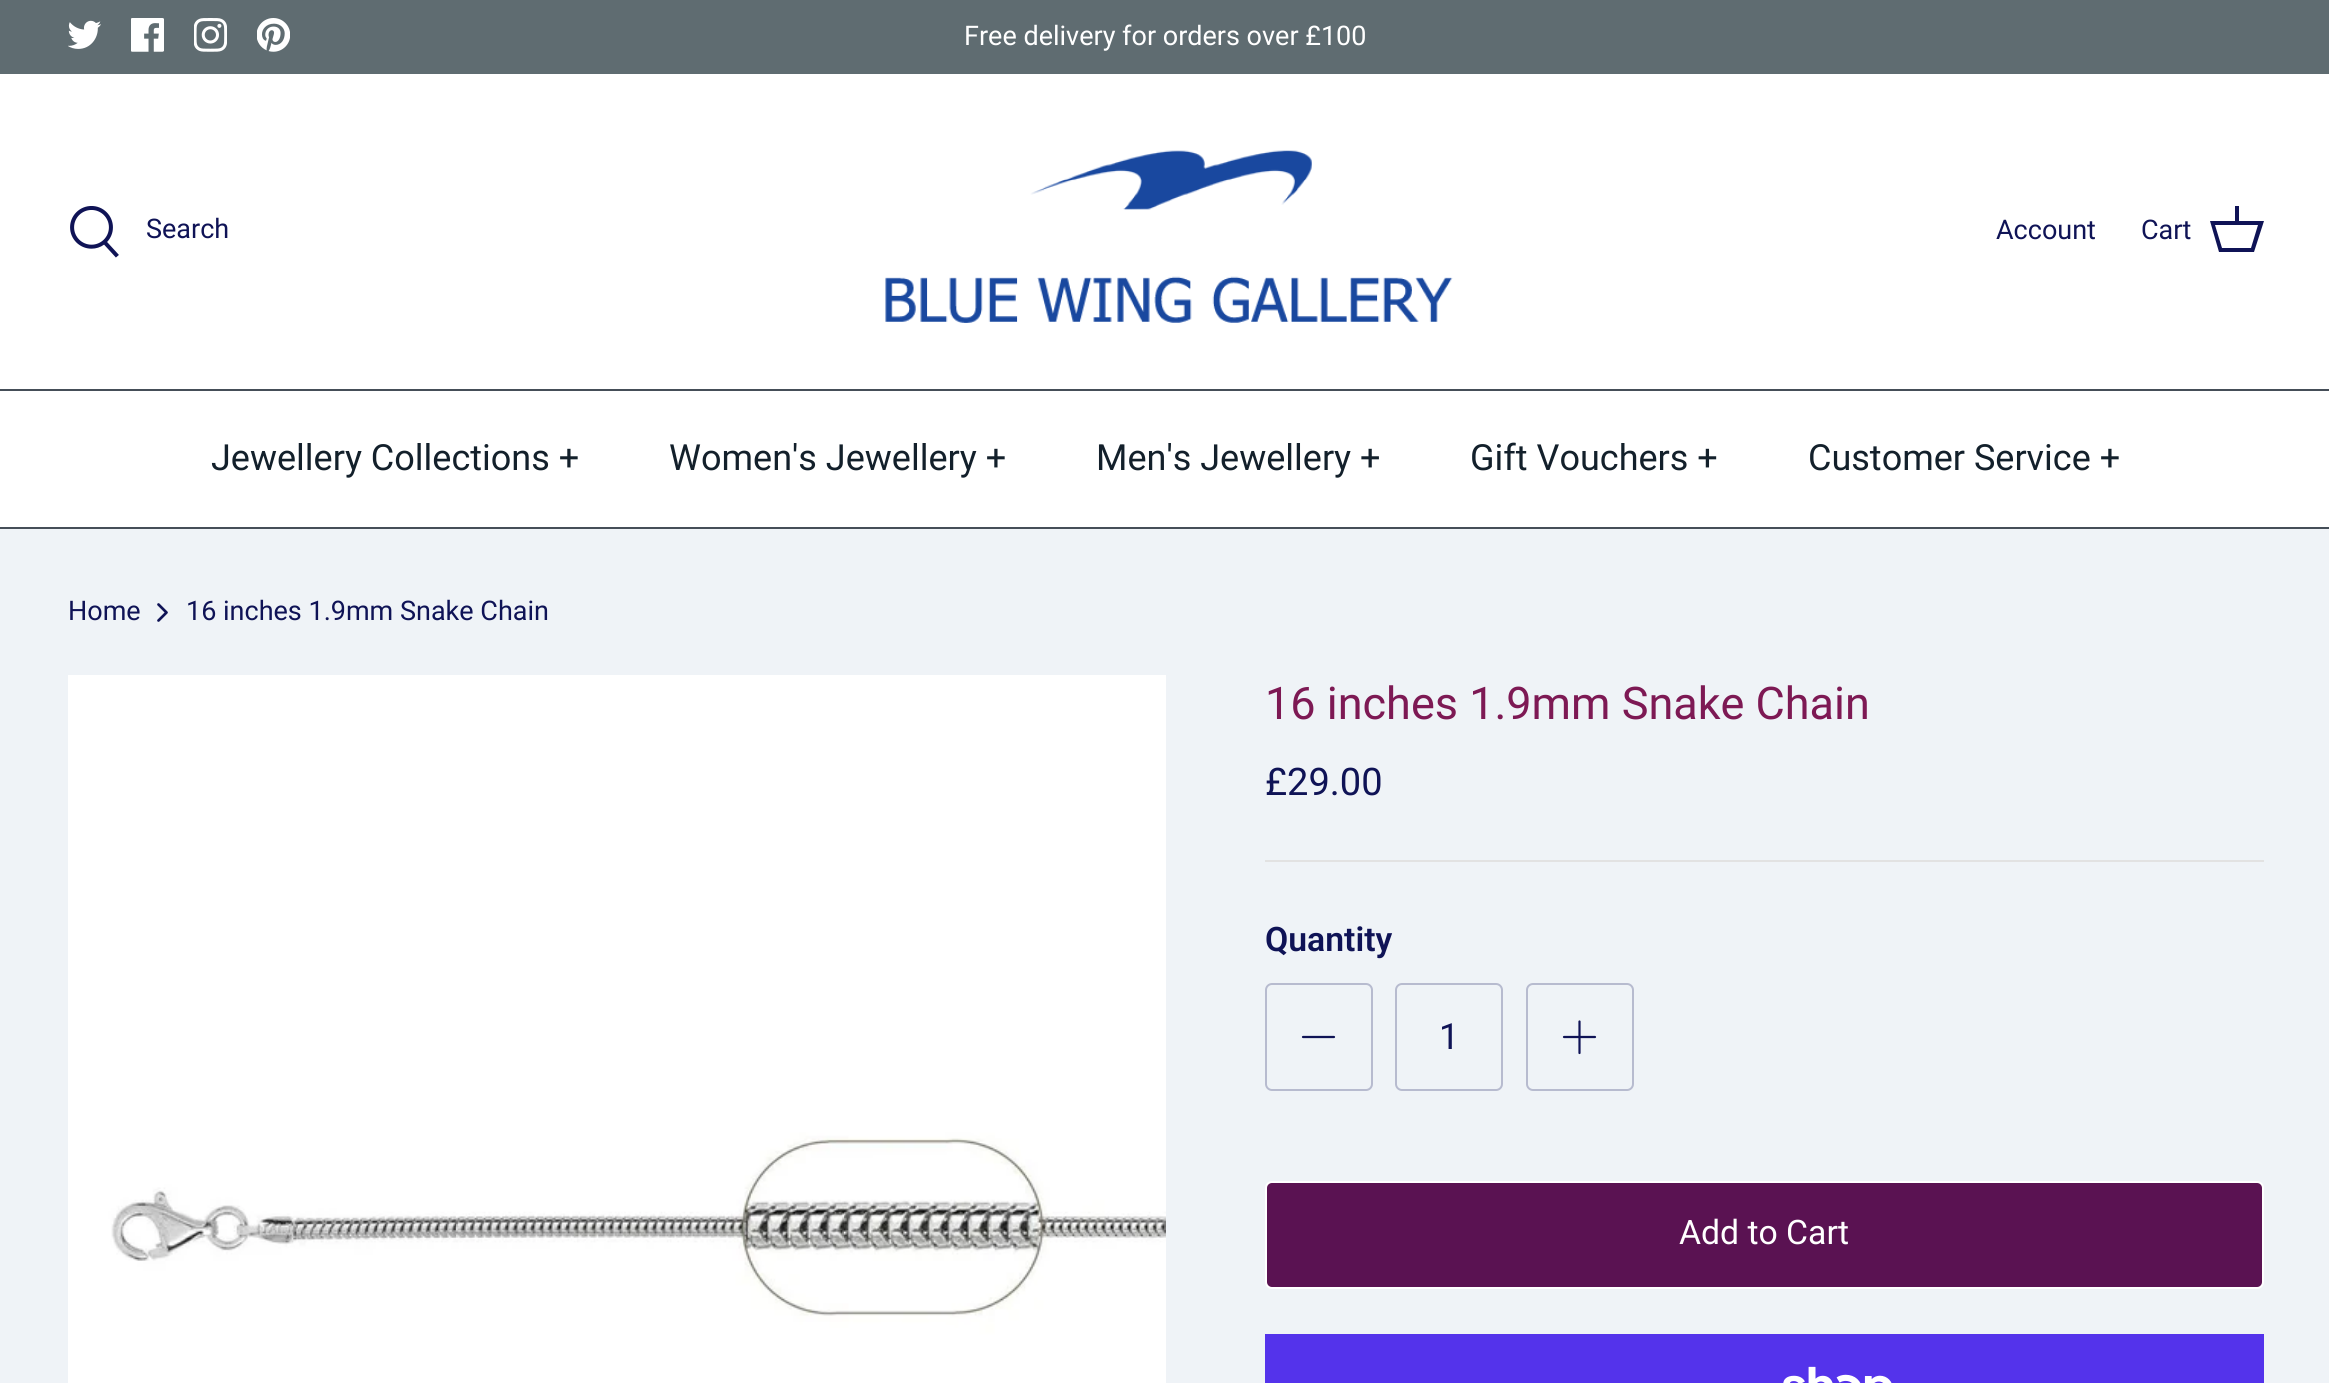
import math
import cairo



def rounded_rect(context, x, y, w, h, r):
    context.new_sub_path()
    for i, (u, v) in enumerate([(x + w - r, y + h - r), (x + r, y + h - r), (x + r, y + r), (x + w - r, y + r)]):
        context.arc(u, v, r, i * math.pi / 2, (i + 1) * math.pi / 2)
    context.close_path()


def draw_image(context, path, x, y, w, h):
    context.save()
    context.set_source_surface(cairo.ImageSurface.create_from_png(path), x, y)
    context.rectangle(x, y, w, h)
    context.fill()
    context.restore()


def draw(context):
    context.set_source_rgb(239 / 255, 243 / 255, 247 / 255)
    context.paint()
    context.set_source_rgb(95 / 255, 108 / 255, 113 / 255)
    context.rectangle(0, 0, 2329, 74)
    context.fill()
    draw_image(context, "images/1.png", 68, 20, 33, 29)
    draw_image(context, "images/2.png", 131, 18, 33, 34)
    draw_image(context, "images/3.png", 194, 18, 33, 34)
    draw_image(context, "images/4.png", 257, 18, 33, 34)
    context.set_source_rgb(1, 1, 1)
    context.rectangle(0, 74, 2329, 453)
    context.fill()
    context.set_source_rgb(69 / 255, 78 / 255, 88 / 255)
    context.rectangle(0, 389, 2329, 2)
    context.fill()
    draw_image(context, "images/5.png", 70, 206, 49, 52)
    draw_image(context, "images/6.png", 885, 150, 568, 173)
    context.set_source_rgb(15 / 255, 19 / 255, 86 / 255)
    context.new_path()
    context.move_to(2235, 221)
    context.line_to(2235, 206)
    context.line_to(2239, 206)
    context.line_to(2239, 221)
    context.line_to(2264, 221)
    context.line_to(2254, 252)
    context.line_to(2219, 252)
    context.line_to(2210, 221)
    context.close_path()
    context.move_to(2215, 225)
    context.line_to(2222, 248)
    context.line_to(2251, 248)
    context.line_to(2258, 225)
    context.close_path()
    context.fill()
    context.set_source_rgb(69 / 255, 78 / 255, 88 / 255)
    context.rectangle(0, 527, 2329, 2)
    context.fill()
    context.new_path()
    context.move_to(158.5, 620.5)
    context.line_to(166.5, 612.5)
    context.line_to(158.5, 604.5)
    context.set_source_rgb(15 / 255, 19 / 255, 86 / 255)
    context.set_line_width(2.7)
    context.set_line_cap(cairo.LineCap.ROUND)
    context.set_line_join(cairo.LineJoin.ROUND)
    context.stroke()
    draw_image(context, "images/7.png", 68, 675, 1098, 708)
    context.set_source_rgb(226 / 255, 226 / 255, 226 / 255)
    context.rectangle(1265, 860, 999, 2)
    context.fill()
    rounded_rect(context, 1266, 984, 106, 106, 6)
    context.set_source_rgb(183 / 255, 187 / 255, 207 / 255)
    context.set_line_width(2)
    context.set_line_cap(cairo.LineCap.BUTT)
    context.set_line_join(cairo.LineJoin.MITER)
    context.stroke()
    context.new_path()
    context.move_to(1303, 1037)
    context.line_to(1334, 1037)
    context.set_source_rgb(15 / 255, 19 / 255, 86 / 255)
    context.set_line_width(2.2)
    context.set_line_cap(cairo.LineCap.ROUND)
    context.set_line_join(cairo.LineJoin.ROUND)
    context.stroke()
    rounded_rect(context, 1396, 984, 106, 106, 6)
    context.set_source_rgb(183 / 255, 187 / 255, 207 / 255)
    context.set_line_width(2)
    context.set_line_cap(cairo.LineCap.BUTT)
    context.set_line_join(cairo.LineJoin.MITER)
    context.stroke()
    rounded_rect(context, 1527, 984, 106, 106, 6)
    context.stroke()
    context.new_path()
    context.move_to(1579.5, 1021.5)
    context.line_to(1579.5, 1053)
    context.move_to(1564, 1037)
    context.line_to(1595, 1037)
    context.set_source_rgb(15 / 255, 19 / 255, 86 / 255)
    context.set_line_width(2.2)
    context.set_line_cap(cairo.LineCap.ROUND)
    context.set_line_join(cairo.LineJoin.ROUND)
    context.stroke()
    context.set_source_rgb(90 / 255, 18 / 255, 82 / 255)
    rounded_rect(context, 1266, 1182, 997, 106, 6)
    context.fill_preserve()
    context.set_source_rgb(1, 1, 1)
    context.set_line_width(2)
    context.set_line_cap(cairo.LineCap.BUTT)
    context.set_line_join(cairo.LineJoin.MITER)
    context.stroke()
    context.set_source_rgb(84 / 255, 51 / 255, 235 / 255)
    context.rectangle(1265, 1334, 999, 49)
    context.fill()
    draw_image(context, "images/8.png", 1783, 1366, 109, 17)
    context.select_font_face("Roboto")
    context.set_font_size(27)
    context.set_source_rgb(1, 1, 1)
    context.move_to(964, 45)
    context.show_text("Free delivery for orders over £100")
    context.set_source_rgb(15 / 255, 19 / 255, 86 / 255)
    context.move_to(146, 238)
    context.show_text("Search")
    context.move_to(1996, 239)
    context.show_text("Account")
    context.move_to(2141, 239)
    context.show_text("Cart")
    context.set_font_size(36)
    context.set_source_rgb(19 / 255, 32 / 255, 43 / 255)
    context.move_to(211, 470)
    context.show_text("Jewellery Collections +")
    context.move_to(669, 470)
    context.show_text("Women's Jewellery +")
    context.move_to(1096, 470)
    context.show_text("Men's Jewellery +")
    context.move_to(1470, 470)
    context.show_text("Gift Vouchers +")
    context.move_to(1808, 470)
    context.show_text("Customer Service +")
    context.set_font_size(27)
    context.set_source_rgb(15 / 255, 19 / 255, 86 / 255)
    context.move_to(68, 620)
    context.show_text("Home")
    context.move_to(186, 620)
    context.show_text("16 inches 1.9mm Snake Chain")
    context.set_font_size(45)
    context.set_source_rgb(125 / 255, 25 / 255, 84 / 255)
    context.move_to(1265, 719)
    context.show_text("16 inches 1.9mm Snake Chain")
    context.set_font_size(38)
    context.set_source_rgb(15 / 255, 19 / 255, 86 / 255)
    context.move_to(1265, 795)
    context.show_text("£29.00")
    context.select_font_face("Roboto SemiBold")
    context.set_font_size(33.75)
    context.move_to(1265, 951)
    context.show_text("Quantity")
    context.select_font_face("Roboto")
    context.set_font_size(36)
    context.move_to(1439, 1049)
    context.show_text("1")
    context.set_font_size(33.75)
    context.set_source_rgb(1, 1, 1)
    context.move_to(1679, 1244)
    context.show_text("Add to Cart")


surface = cairo.ImageSurface(cairo.Format.RGB24, 2329, 1383)
context = cairo.Context(surface)
options = cairo.FontOptions()
options.set_hint_metrics(cairo.HintMetrics.OFF)
options.set_hint_style(cairo.HintStyle.NONE)
context.set_font_options(options)
context.set_miter_limit(4)
draw(context)
surface.write_to_png("out.png")
